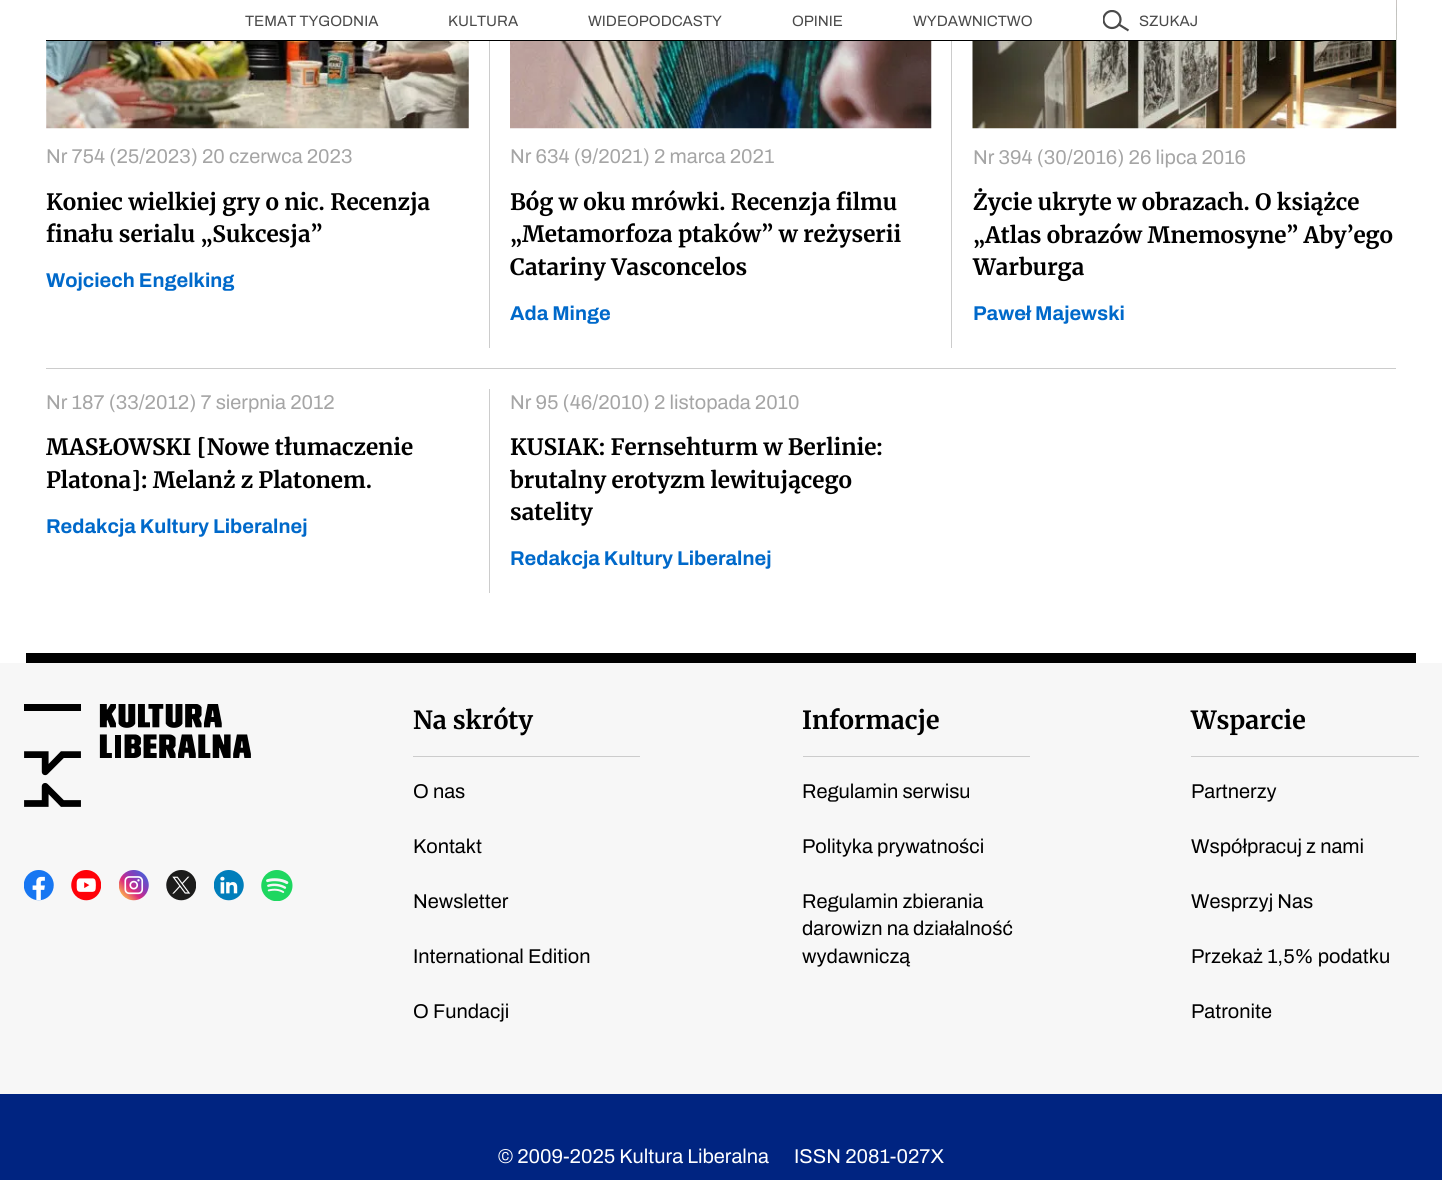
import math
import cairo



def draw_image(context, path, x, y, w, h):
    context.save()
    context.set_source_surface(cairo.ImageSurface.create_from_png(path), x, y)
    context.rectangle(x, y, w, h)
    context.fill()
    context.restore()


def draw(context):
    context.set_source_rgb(1, 1, 1)
    context.paint()
    draw_image(context, "images/3.png", 972, 0, 425, 129)
    context.set_source_rgb(1, 1, 1)
    context.rectangle(972, 0, 424, 40)
    context.fill()
    context.set_source_rgb(0, 0, 0)
    context.rectangle(46, 40, 1350, 1)
    context.fill()
    context.save()
    context.rectangle(1103, 10, 27, 23)
    context.clip()
    context.arc(1112, 19.5, 8.5, 0, 2 * math.pi)
    context.set_source_rgb(74 / 255, 74 / 255, 74 / 255)
    context.set_line_width(2.2)
    context.stroke()
    context.restore()
    context.new_path()
    context.move_to(1118, 24)
    context.line_to(1128.5, 30.5)
    context.set_source_rgb(74 / 255, 74 / 255, 74 / 255)
    context.set_line_width(2.2)
    context.stroke()
    context.set_source_rgb(204 / 255, 204 / 255, 204 / 255)
    context.rectangle(489, 41, 1, 307)
    context.fill()
    draw_image(context, "images/1.png", 46, 41, 423, 88)
    context.rectangle(951, 41, 1, 307)
    context.fill()
    draw_image(context, "images/2.png", 510, 41, 422, 88)
    context.rectangle(46, 368, 1350, 1)
    context.fill()
    context.rectangle(489, 389, 1, 204)
    context.fill()
    context.set_source_rgb(247 / 255, 247 / 255, 247 / 255)
    context.rectangle(0, 663, 1442, 431)
    context.fill()
    context.set_source_rgb(0, 0, 0)
    context.rectangle(26, 653, 1390, 10)
    context.fill()
    draw_image(context, "images/4.png", 24, 704, 227, 103)
    draw_image(context, "images/5.png", 24, 870, 30, 31)
    draw_image(context, "images/6.png", 71, 870, 30, 31)
    draw_image(context, "images/7.png", 119, 870, 30, 31)
    draw_image(context, "images/8.png", 166, 870, 30, 31)
    draw_image(context, "images/9.png", 214, 870, 30, 31)
    draw_image(context, "images/10.png", 261, 870, 32, 31)
    context.set_source_rgb(204 / 255, 204 / 255, 204 / 255)
    context.rectangle(413, 756, 227, 1)
    context.fill()
    context.rectangle(803, 756, 227, 1)
    context.fill()
    context.rectangle(1191, 756, 228, 1)
    context.fill()
    context.set_source_rgb(0, 36 / 255, 129 / 255)
    context.rectangle(0, 1094, 1442, 86)
    context.fill()
    context.select_font_face("Archivo")
    context.set_font_size(15)
    context.set_source_rgb(74 / 255, 74 / 255, 74 / 255)
    context.move_to(245, 26)
    context.show_text("TEMAT TYGODNIA")
    context.move_to(448, 26)
    context.show_text("KULTURA")
    context.move_to(588, 26)
    context.show_text("WIDEOPODCASTY")
    context.move_to(792, 26)
    context.show_text("OPINIE")
    context.move_to(913, 26)
    context.show_text("WYDAWNICTWO")
    context.move_to(1139, 26)
    context.show_text("SZUKAJ")
    context.set_font_size(20)
    context.set_source_rgb(165 / 255, 165 / 255, 165 / 255)
    context.move_to(46, 163)
    context.show_text("Nr 754 (25/2023) 20 czerwca 2023")
    context.select_font_face("Merriweather", cairo.FontSlant.NORMAL, cairo.FontWeight.BOLD)
    context.set_font_size(22.5)
    context.set_source_rgb(0, 0, 0)
    context.move_to(46, 210)
    context.show_text("Koniec wielkiej gry o nic. Recenzja")
    context.move_to(46, 242)
    context.show_text("finału serialu „Sukcesja”")
    context.select_font_face("Archivo", cairo.FontSlant.NORMAL, cairo.FontWeight.BOLD)
    context.set_font_size(20)
    context.set_source_rgb(0, 105 / 255, 202 / 255)
    context.move_to(46, 287)
    context.show_text("Wojciech Engelking")
    context.select_font_face("Archivo")
    context.set_source_rgb(165 / 255, 165 / 255, 165 / 255)
    context.move_to(510, 163)
    context.show_text("Nr 634 (9/2021) 2 marca 2021")
    context.select_font_face("Merriweather", cairo.FontSlant.NORMAL, cairo.FontWeight.BOLD)
    context.set_font_size(22.5)
    context.set_source_rgb(0, 0, 0)
    context.move_to(510, 210)
    context.show_text("Bóg w oku mrówki. Recenzja filmu")
    context.move_to(510, 242)
    context.show_text("„Metamorfoza ptaków” w reżyserii")
    context.move_to(510, 275)
    context.show_text("Catariny Vasconcelos")
    context.select_font_face("Archivo", cairo.FontSlant.NORMAL, cairo.FontWeight.BOLD)
    context.set_font_size(20)
    context.set_source_rgb(0, 105 / 255, 202 / 255)
    context.move_to(510, 320)
    context.show_text("Ada Minge")
    context.select_font_face("Archivo")
    context.set_source_rgb(165 / 255, 165 / 255, 165 / 255)
    context.move_to(973, 164)
    context.show_text("Nr 394 (30/2016) 26 lipca 2016")
    context.select_font_face("Merriweather", cairo.FontSlant.NORMAL, cairo.FontWeight.BOLD)
    context.set_font_size(22.5)
    context.set_source_rgb(0, 0, 0)
    context.move_to(973, 210)
    context.show_text("Życie ukryte w obrazach. O książce")
    context.move_to(973, 243)
    context.show_text("„Atlas obrazów Mnemosyne” Aby’ego")
    context.move_to(973, 275)
    context.show_text("Warburga")
    context.select_font_face("Archivo", cairo.FontSlant.NORMAL, cairo.FontWeight.BOLD)
    context.set_font_size(20)
    context.set_source_rgb(0, 105 / 255, 202 / 255)
    context.move_to(973, 320)
    context.show_text("Paweł Majewski")
    context.select_font_face("Archivo")
    context.set_source_rgb(165 / 255, 165 / 255, 165 / 255)
    context.move_to(46, 409)
    context.show_text("Nr 187 (33/2012) 7 sierpnia 2012")
    context.select_font_face("Merriweather", cairo.FontSlant.NORMAL, cairo.FontWeight.BOLD)
    context.set_font_size(22.5)
    context.set_source_rgb(0, 0, 0)
    context.move_to(46, 455)
    context.show_text("MASŁOWSKI [Nowe tłumaczenie")
    context.move_to(46, 488)
    context.show_text("Platona]: Melanż z Platonem.")
    context.select_font_face("Archivo", cairo.FontSlant.NORMAL, cairo.FontWeight.BOLD)
    context.set_font_size(20)
    context.set_source_rgb(0, 105 / 255, 202 / 255)
    context.move_to(46, 533)
    context.show_text("Redakcja Kultury Liberalnej")
    context.select_font_face("Archivo")
    context.set_source_rgb(165 / 255, 165 / 255, 165 / 255)
    context.move_to(510, 409)
    context.show_text("Nr 95 (46/2010) 2 listopada 2010")
    context.select_font_face("Merriweather", cairo.FontSlant.NORMAL, cairo.FontWeight.BOLD)
    context.set_font_size(22.5)
    context.set_source_rgb(0, 0, 0)
    context.move_to(510, 455)
    context.show_text("KUSIAK: Fernsehturm w Berlinie:")
    context.move_to(510, 488)
    context.show_text("brutalny erotyzm lewitującego")
    context.move_to(510, 520)
    context.show_text("satelity")
    context.select_font_face("Archivo", cairo.FontSlant.NORMAL, cairo.FontWeight.BOLD)
    context.set_font_size(20)
    context.set_source_rgb(0, 105 / 255, 202 / 255)
    context.move_to(510, 565)
    context.show_text("Redakcja Kultury Liberalnej")
    context.select_font_face("Merriweather", cairo.FontSlant.NORMAL, cairo.FontWeight.BOLD)
    context.set_font_size(25)
    context.set_source_rgb(0, 0, 0)
    context.move_to(413, 729)
    context.show_text("Na skróty")
    context.select_font_face("Archivo")
    context.set_font_size(20)
    context.move_to(413, 798)
    context.show_text("O nas")
    context.move_to(413, 853)
    context.show_text("Kontakt")
    context.move_to(413, 908)
    context.show_text("Newsletter")
    context.move_to(413, 963)
    context.show_text("International Edition")
    context.move_to(413, 1018)
    context.show_text("O Fundacji")
    context.select_font_face("Merriweather", cairo.FontSlant.NORMAL, cairo.FontWeight.BOLD)
    context.set_font_size(25)
    context.move_to(802, 729)
    context.show_text("Informacje")
    context.select_font_face("Archivo")
    context.set_font_size(20)
    context.move_to(802, 798)
    context.show_text("Regulamin serwisu")
    context.move_to(802, 853)
    context.show_text("Polityka prywatności")
    context.move_to(802, 908)
    context.show_text("Regulamin zbierania")
    context.move_to(802, 935)
    context.show_text("darowizn na działalność")
    context.move_to(802, 963)
    context.show_text("wydawniczą")
    context.select_font_face("Merriweather", cairo.FontSlant.NORMAL, cairo.FontWeight.BOLD)
    context.set_font_size(25)
    context.move_to(1191, 729)
    context.show_text("Wsparcie")
    context.select_font_face("Archivo")
    context.set_font_size(20)
    context.move_to(1191, 798)
    context.show_text("Partnerzy")
    context.move_to(1191, 853)
    context.show_text("Współpracuj z nami")
    context.move_to(1191, 908)
    context.show_text("Wesprzyj Nas")
    context.move_to(1191, 963)
    context.show_text("Przekaż 1,5% podatku")
    context.move_to(1191, 1018)
    context.show_text("Patronite")
    context.set_source_rgb(1, 1, 1)
    context.move_to(498, 1163)
    context.show_text("© 2009-2025 Kultura Liberalna")
    context.move_to(794, 1163)
    context.show_text("ISSN 2081-027X")


surface = cairo.ImageSurface(cairo.Format.RGB24, 1442, 1180)
context = cairo.Context(surface)
options = cairo.FontOptions()
options.set_hint_metrics(cairo.HintMetrics.OFF)
options.set_hint_style(cairo.HintStyle.NONE)
context.set_font_options(options)
context.set_miter_limit(4)
draw(context)
surface.write_to_png("out.png")
